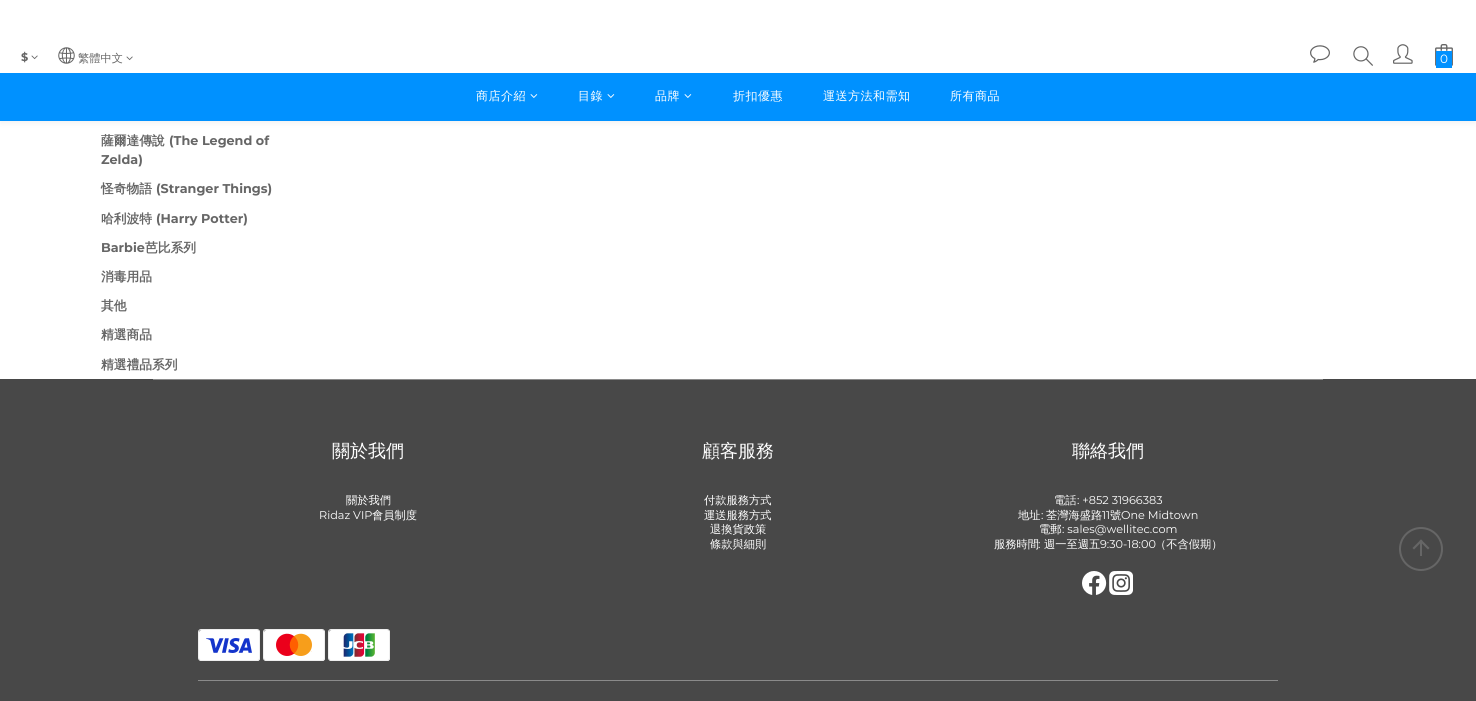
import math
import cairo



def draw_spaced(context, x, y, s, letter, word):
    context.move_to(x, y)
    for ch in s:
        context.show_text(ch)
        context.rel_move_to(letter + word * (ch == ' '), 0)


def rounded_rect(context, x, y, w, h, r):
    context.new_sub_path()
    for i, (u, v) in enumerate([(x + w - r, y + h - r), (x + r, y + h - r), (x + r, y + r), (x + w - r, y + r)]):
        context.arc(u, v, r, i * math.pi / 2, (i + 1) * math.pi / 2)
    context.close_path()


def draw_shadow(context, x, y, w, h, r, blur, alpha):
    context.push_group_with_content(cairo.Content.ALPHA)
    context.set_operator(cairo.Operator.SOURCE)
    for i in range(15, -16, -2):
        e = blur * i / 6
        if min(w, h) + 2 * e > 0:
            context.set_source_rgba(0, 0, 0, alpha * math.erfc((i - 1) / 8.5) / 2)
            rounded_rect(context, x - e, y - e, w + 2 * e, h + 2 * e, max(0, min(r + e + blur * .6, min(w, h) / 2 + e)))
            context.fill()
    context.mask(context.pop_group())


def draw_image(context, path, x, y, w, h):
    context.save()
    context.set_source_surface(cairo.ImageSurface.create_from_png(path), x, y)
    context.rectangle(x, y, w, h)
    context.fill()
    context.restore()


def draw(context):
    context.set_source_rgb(1, 1, 1)
    context.paint()
    context.set_source_rgb(0, 0, 0)
    draw_shadow(context, 0, 2, 1476, 121, 0, 3, 0.06)
    context.set_source_rgb(1, 1, 1)
    context.rectangle(0, 0, 1476, 73)
    context.fill()
    draw_image(context, "images/1.png", 31, 55, 7, 5)
    draw_image(context, "images/2.png", 58, 47, 17, 17)
    draw_image(context, "images/1.png", 126, 56, 7, 5)
    draw_image(context, "images/3.png", 1310, 45, 20, 18)
    draw_image(context, "images/4.png", 1353, 46, 20, 20)
    draw_image(context, "images/5.png", 1393, 44, 20, 20)
    draw_image(context, "images/6.png", 1435, 44, 18, 22)
    context.set_source_rgb(0, 145 / 255, 1)
    context.rectangle(1436, 51, 16, 17)
    context.fill()
    context.rectangle(0, 73, 1476, 48)
    context.fill()
    draw_image(context, "images/7.png", 530, 94, 8, 4)
    draw_image(context, "images/7.png", 607, 94, 8, 4)
    draw_image(context, "images/7.png", 684, 94, 8, 4)
    context.set_source_rgb(72 / 255, 72 / 255, 72 / 255)
    context.rectangle(0, 379, 1476, 322)
    context.fill()
    context.set_source_rgb(138 / 255, 138 / 255, 138 / 255)
    context.rectangle(153, 379, 1170, 1)
    context.fill()
    draw_image(context, "images/8.png", 1082, 571, 25, 24)
    draw_image(context, "images/9.png", 1109, 571, 24, 24)
    draw_image(context, "images/10.png", 198, 629, 62, 32)
    draw_image(context, "images/11.png", 263, 629, 62, 32)
    draw_image(context, "images/12.png", 328, 629, 62, 32)
    context.rectangle(198, 680, 1080, 1)
    context.fill()
    context.arc(1421, 549, 21, 0, 2 * math.pi)
    context.set_source_rgb(102 / 255, 102 / 255, 102 / 255)
    context.stroke()
    context.new_path()
    context.move_to(1421, 539.5)
    context.line_to(1429.5, 548)
    context.line_to(1428, 549.5)
    context.line_to(1419.5, 541)
    context.close_path()
    context.fill()
    context.new_path()
    context.move_to(1421, 539.5)
    context.line_to(1422.5, 541)
    context.line_to(1414, 549.5)
    context.line_to(1412.5, 548)
    context.close_path()
    context.fill()
    context.rectangle(1420, 542, 2, 14)
    context.fill()
    context.select_font_face("Montserrat", cairo.FontSlant.NORMAL, cairo.FontWeight.BOLD)
    context.set_font_size(11.25)
    context.move_to(21, 61)
    context.show_text("$")
    context.select_font_face("WenQuanYi Zen Hei Medium")
    context.move_to(78, 62)
    context.show_text("繁體中文")
    context.select_font_face("Montserrat")
    context.set_font_size(12)
    context.set_source_rgb(1, 1, 1)
    context.move_to(1440, 63)
    context.show_text("0")
    context.select_font_face("WenQuanYi Zen Hei Medium")
    draw_spaced(context, 476, 100, "商店介紹", 0.5, 0)
    draw_spaced(context, 578, 100, "目錄", 0.5, 0)
    draw_spaced(context, 655, 100, "品牌", 0.5, 0)
    draw_spaced(context, 733, 100, "折扣優惠", 0.5, 0)
    draw_spaced(context, 823, 100, "運送方法和需知", 0.5, 0)
    draw_spaced(context, 950, 100, "所有商品", 0.5, 0)
    context.select_font_face("WenQuanYi Zen Hei", cairo.FontSlant.NORMAL, cairo.FontWeight.BOLD)
    context.set_font_size(12.75)
    context.set_source_rgb(102 / 255, 102 / 255, 102 / 255)
    context.move_to(101, 145)
    context.show_text("薩爾達傳說")
    context.select_font_face("Montserrat", cairo.FontSlant.NORMAL, cairo.FontWeight.BOLD)
    context.move_to(169, 145)
    context.show_text("(The Legend of")
    context.move_to(101, 164)
    context.show_text("Zelda)")
    context.select_font_face("WenQuanYi Zen Hei", cairo.FontSlant.NORMAL, cairo.FontWeight.BOLD)
    context.move_to(101, 193)
    context.show_text("怪奇物語")
    context.select_font_face("Montserrat", cairo.FontSlant.NORMAL, cairo.FontWeight.BOLD)
    context.move_to(156, 193)
    context.show_text("(Stranger Things)")
    context.select_font_face("WenQuanYi Zen Hei", cairo.FontSlant.NORMAL, cairo.FontWeight.BOLD)
    context.move_to(101, 223)
    context.show_text("哈利波特")
    context.select_font_face("Montserrat", cairo.FontSlant.NORMAL, cairo.FontWeight.BOLD)
    context.move_to(156, 223)
    context.show_text("(Harry Potter)")
    context.move_to(101, 252)
    context.show_text("Barbie")
    context.select_font_face("WenQuanYi Zen Hei", cairo.FontSlant.NORMAL, cairo.FontWeight.BOLD)
    context.move_to(145, 252)
    context.show_text("芭比系列")
    context.move_to(101, 281)
    context.show_text("消毒用品")
    context.move_to(101, 310)
    context.show_text("其他")
    context.move_to(101, 339)
    context.show_text("精選商品")
    context.move_to(101, 369)
    context.show_text("精選禮品系列")
    context.select_font_face("WenQuanYi Zen Hei Medium")
    context.set_font_size(18)
    context.set_source_rgb(1, 1, 1)
    context.move_to(332, 457)
    context.show_text("關於我們")
    context.set_font_size(11.25)
    context.move_to(346, 504)
    context.show_text("關於我們")
    context.select_font_face("Montserrat")
    context.move_to(319, 519)
    context.show_text("Ridaz VIP")
    context.select_font_face("WenQuanYi Zen Hei Medium")
    context.move_to(372, 519)
    context.show_text("會員制度")
    context.set_font_size(18)
    context.move_to(702, 457)
    context.show_text("顧客服務")
    context.set_font_size(11.25)
    context.move_to(704, 504)
    context.show_text("付款服務方式")
    context.move_to(704, 519)
    context.show_text("運送服務方式")
    context.move_to(710, 533)
    context.show_text("退換貨政策")
    context.move_to(710, 548)
    context.show_text("條款與細則")
    context.set_font_size(18)
    context.move_to(1072, 457)
    context.show_text("聯絡我們")
    context.set_font_size(11.25)
    context.move_to(1054, 504)
    context.show_text("電話")
    context.select_font_face("Montserrat")
    context.move_to(1077, 504)
    context.show_text(": +852 31966383")
    context.select_font_face("WenQuanYi Zen Hei Medium")
    context.move_to(1018, 519)
    context.show_text("地址")
    context.select_font_face("Montserrat")
    context.move_to(1041, 519)
    context.show_text(":")
    context.select_font_face("WenQuanYi Zen Hei Medium")
    context.move_to(1046, 519)
    context.show_text("荃灣海盛路")
    context.select_font_face("Montserrat")
    context.move_to(1102, 519)
    context.show_text("11")
    context.select_font_face("WenQuanYi Zen Hei Medium")
    context.move_to(1110, 519)
    context.show_text("號")
    context.select_font_face("Montserrat")
    context.move_to(1121, 519)
    context.show_text("One Midtown")
    context.select_font_face("WenQuanYi Zen Hei Medium")
    context.move_to(1039, 533)
    context.show_text("電郵")
    context.select_font_face("Montserrat")
    context.move_to(1062, 533)
    context.show_text(": sales@wellitec.com")
    context.select_font_face("WenQuanYi Zen Hei Medium")
    context.move_to(994, 548)
    context.show_text("服務時間")
    context.select_font_face("Montserrat")
    context.move_to(1038, 548)
    context.show_text(":")
    context.select_font_face("WenQuanYi Zen Hei Medium")
    context.move_to(1044, 548)
    context.show_text("週一至週五")
    context.select_font_face("Montserrat")
    context.move_to(1100, 548)
    context.show_text("9:30-18:00")
    context.select_font_face("WenQuanYi Zen Hei Medium")
    context.move_to(1155, 548)
    context.show_text("（不含假期）")


surface = cairo.ImageSurface(cairo.Format.RGB24, 1476, 701)
context = cairo.Context(surface)
options = cairo.FontOptions()
options.set_hint_metrics(cairo.HintMetrics.OFF)
options.set_hint_style(cairo.HintStyle.NONE)
context.set_font_options(options)
context.set_miter_limit(4)
draw(context)
surface.write_to_png("out.png")
